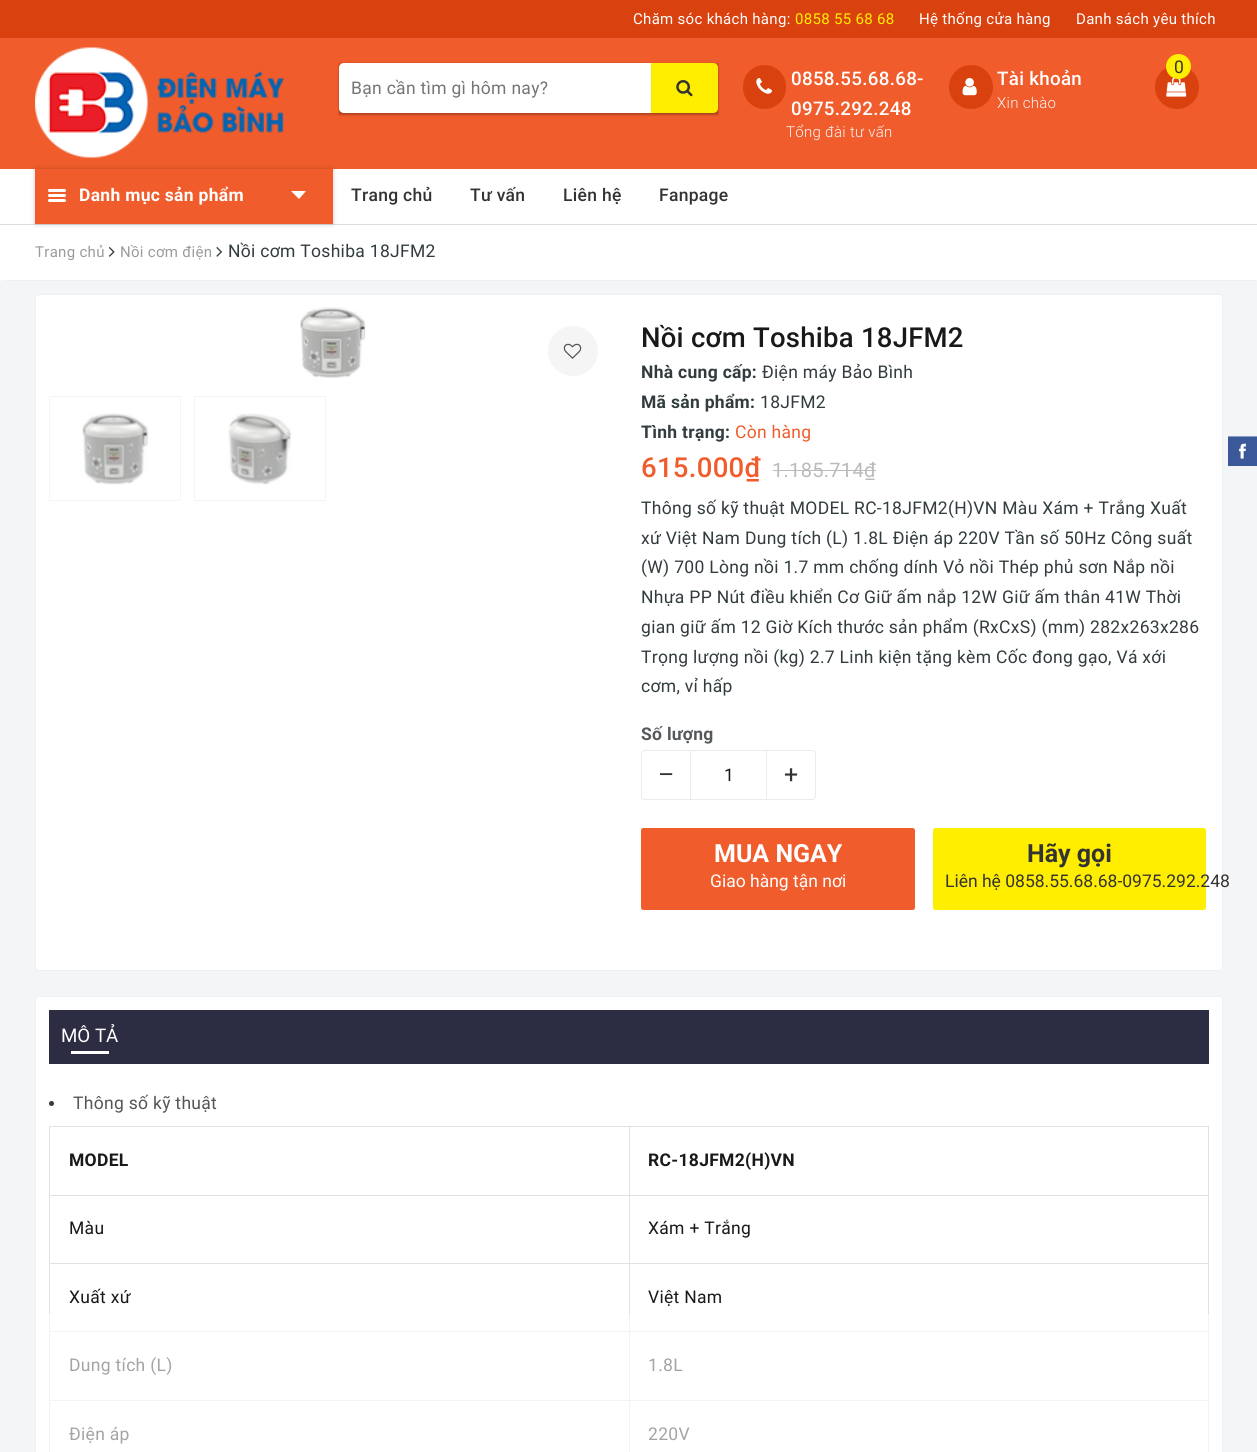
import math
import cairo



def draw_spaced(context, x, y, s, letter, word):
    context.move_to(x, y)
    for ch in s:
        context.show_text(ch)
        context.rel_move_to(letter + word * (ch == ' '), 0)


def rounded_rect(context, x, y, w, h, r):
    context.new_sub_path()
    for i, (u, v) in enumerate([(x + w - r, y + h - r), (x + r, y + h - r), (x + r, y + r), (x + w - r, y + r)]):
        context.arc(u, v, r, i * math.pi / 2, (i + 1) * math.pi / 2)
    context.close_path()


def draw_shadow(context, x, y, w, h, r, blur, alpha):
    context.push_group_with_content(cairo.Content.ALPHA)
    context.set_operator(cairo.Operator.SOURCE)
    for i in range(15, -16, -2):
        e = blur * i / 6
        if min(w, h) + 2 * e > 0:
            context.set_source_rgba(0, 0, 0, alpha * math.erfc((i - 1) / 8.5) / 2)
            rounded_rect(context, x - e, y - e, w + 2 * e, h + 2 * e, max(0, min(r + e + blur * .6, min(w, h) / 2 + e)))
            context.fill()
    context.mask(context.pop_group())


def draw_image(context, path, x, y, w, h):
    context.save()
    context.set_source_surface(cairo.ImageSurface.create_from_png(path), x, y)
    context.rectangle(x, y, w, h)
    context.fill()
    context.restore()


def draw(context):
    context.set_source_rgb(243 / 255, 245 / 255, 247 / 255)
    context.paint()
    context.set_source_rgb(240 / 255, 92 / 255, 43 / 255)
    context.rectangle(0, 38, 1257, 131)
    context.fill()
    context.set_source_rgb(217 / 255, 65 / 255, 15 / 255)
    context.rectangle(0, 0, 1257, 38)
    context.fill()
    draw_image(context, "images/1.png", 35, 47, 249, 111)
    context.set_source_rgb(0, 0, 0)
    draw_shadow(context, 339, 65, 379, 50, 0, 1, 0.24)
    draw_shadow(context, 339, 63, 379, 50, 0, 1, 0.12)
    context.set_source_rgb(1, 1, 1)
    context.new_path()
    context.move_to(344, 63)
    context.line_to(653, 63)
    context.line_to(653, 113)
    context.line_to(344, 113)
    context.curve_to(341, 113, 339, 111, 339, 108)
    context.line_to(339, 68)
    context.curve_to(339, 65, 341, 63, 344, 63)
    context.close_path()
    context.fill()
    context.set_source_rgb(1, 238 / 255, 0)
    context.new_path()
    context.move_to(651, 63)
    context.line_to(713, 63)
    context.curve_to(716, 63, 718, 65, 718, 68)
    context.line_to(718, 108)
    context.curve_to(718, 111, 716, 113, 713, 113)
    context.line_to(651, 113)
    context.close_path()
    context.fill()
    draw_image(context, "images/2.png", 676, 80, 17, 17)
    context.set_source_rgb(217 / 255, 65 / 255, 15 / 255)
    context.arc(1177, 87, 22, 0, 2 * math.pi)
    context.fill()
    draw_image(context, "images/3.png", 1166, 77, 21, 20)
    context.set_source_rgb(1, 238 / 255, 0)
    context.arc(1178.5, 66.5, 12.5, 0, 2 * math.pi)
    context.fill()
    context.set_source_rgb(217 / 255, 65 / 255, 15 / 255)
    rounded_rect(context, 743, 65, 43, 44, 21.5)
    context.fill()
    draw_image(context, "images/4.png", 756, 78, 16, 16)
    context.arc(971, 87, 22, 0, 2 * math.pi)
    context.fill()
    draw_image(context, "images/5.png", 962, 78, 15, 18)
    context.set_source_rgb(1, 1, 1)
    context.rectangle(0, 169, 1257, 55)
    context.fill()
    context.set_source_rgb(221 / 255, 221 / 255, 221 / 255)
    context.rectangle(0, 224, 1257, 1)
    context.fill()
    context.set_source_rgb(1, 1, 1)
    context.new_path()
    context.move_to(0, 225)
    context.line_to(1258, 225)
    context.line_to(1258, 277)
    context.curve_to(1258, 279, 1256, 281, 1254, 281)
    context.line_to(4, 281)
    context.curve_to(2, 281, 0, 279, 0, 277)
    context.close_path()
    context.fill()
    context.set_source_rgb(0, 0, 0)
    draw_shadow(context, 35, 169, 298, 55, 0, 2.5, 0.2)
    context.set_source_rgb(240 / 255, 92 / 255, 43 / 255)
    context.rectangle(35, 169, 298, 55)
    context.fill()
    context.set_source_rgb(1, 1, 1)
    rounded_rect(context, 48, 189, 18, 3, 1.5)
    context.fill()
    rounded_rect(context, 48, 194, 18, 3, 1.5)
    context.fill()
    rounded_rect(context, 48, 199, 18, 3, 1.5)
    context.fill()
    context.new_path()
    context.move_to(291, 191)
    context.line_to(306, 191)
    context.line_to(299, 199)
    context.close_path()
    context.fill()
    context.set_source_rgb(236 / 255, 242 / 255, 244 / 255)
    context.rectangle(3, 280, 1253, 1)
    context.fill()
    draw_image(context, "images/6.png", 108, 247, 7, 10)
    draw_image(context, "images/7.png", 216, 247, 6, 10)
    context.set_source_rgb(1, 1, 1)
    rounded_rect(context, 35.5, 294.5, 1187, 676, 3.5)
    context.fill_preserve()
    context.set_source_rgb(236 / 255, 242 / 255, 244 / 255)
    context.set_line_width(1)
    context.stroke()
    draw_image(context, "images/8.png", 300, 307, 66, 71)
    context.set_source_rgb(245 / 255, 245 / 255, 245 / 255)
    context.arc(573, 351, 25, 0, 2 * math.pi)
    context.fill()
    draw_image(context, "images/9.png", 563, 343, 19, 16)
    context.rectangle(49.5, 396.5, 131, 104)
    context.stroke()
    draw_image(context, "images/10.png", 82, 413, 67, 72)
    context.rectangle(194.5, 396.5, 131, 104)
    context.stroke()
    draw_image(context, "images/11.png", 228, 413, 64, 72)
    context.set_source_rgb(187 / 255, 187 / 255, 187 / 255)
    context.rectangle(773, 470, 103, 1)
    context.fill()
    context.new_path()
    context.move_to(645, 750.5)
    context.line_to(690.5, 750.5)
    context.line_to(690.5, 799.5)
    context.line_to(645, 799.5)
    context.curve_to(643, 799.5, 641.5, 798, 641.5, 796)
    context.line_to(641.5, 754)
    context.curve_to(641.5, 752, 643, 750.5, 645, 750.5)
    context.close_path()
    context.set_source_rgb(235 / 255, 235 / 255, 235 / 255)
    context.stroke()
    context.rectangle(691, 750, 75, 1)
    context.fill()
    context.rectangle(691, 799, 75, 1)
    context.fill()
    context.new_path()
    context.move_to(766.5, 750.5)
    context.line_to(812, 750.5)
    context.curve_to(814, 750.5, 815.5, 752, 815.5, 754)
    context.line_to(815.5, 796)
    context.curve_to(815.5, 798, 814, 799.5, 812, 799.5)
    context.line_to(766.5, 799.5)
    context.close_path()
    context.stroke()
    context.set_source_rgb(240 / 255, 92 / 255, 43 / 255)
    rounded_rect(context, 641, 828, 274, 82, 2.5)
    context.fill()
    context.set_source_rgb(1, 238 / 255, 0)
    rounded_rect(context, 933, 828, 273, 82, 2.5)
    context.fill()
    context.set_source_rgb(1, 1, 1)
    rounded_rect(context, 35.5, 996.5, 1187, 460, 3.5)
    context.fill_preserve()
    context.set_source_rgb(236 / 255, 242 / 255, 244 / 255)
    context.stroke()
    context.set_source_rgb(44 / 255, 44 / 255, 67 / 255)
    context.rectangle(49, 1010, 1160, 54)
    context.fill()
    context.set_source_rgb(1, 1, 1)
    context.rectangle(71, 1051, 38, 3)
    context.fill()
    context.set_source_rgb(50 / 255, 60 / 255, 63 / 255)
    context.arc(51.5, 1103.5, 2.5, 0, 2 * math.pi)
    context.fill()
    context.set_source_rgb(225 / 255, 225 / 255, 225 / 255)
    context.rectangle(629, 1126, 580, 1)
    context.fill()
    context.rectangle(629, 1195, 580, 1)
    context.fill()
    context.rectangle(629, 1263, 580, 1)
    context.fill()
    context.rectangle(629, 1263, 1, 51)
    context.fill()
    context.rectangle(49, 1263, 581, 1)
    context.fill()
    context.rectangle(629, 1195, 1, 69)
    context.fill()
    context.rectangle(49, 1195, 581, 1)
    context.fill()
    context.rectangle(629, 1126, 1, 70)
    context.fill()
    context.rectangle(49, 1126, 581, 1)
    context.fill()
    context.rectangle(49, 1263, 1, 51)
    context.fill()
    context.rectangle(49, 1195, 1, 69)
    context.fill()
    context.rectangle(49, 1126, 1, 70)
    context.fill()
    context.rectangle(1208, 1263, 1, 51)
    context.fill()
    context.rectangle(1208, 1195, 1, 69)
    context.fill()
    context.rectangle(1208, 1126, 1, 70)
    context.fill()
    context.set_source_rgb(243 / 255, 243 / 255, 243 / 255)
    context.rectangle(629, 1331, 580, 1)
    context.fill()
    context.rectangle(629, 1400, 580, 1)
    context.fill()
    context.rectangle(629, 1400, 1, 52)
    context.fill()
    context.rectangle(49, 1400, 581, 1)
    context.fill()
    context.rectangle(629, 1331, 1, 70)
    context.fill()
    context.rectangle(49, 1331, 581, 1)
    context.fill()
    context.rectangle(629, 1314, 1, 19)
    context.fill()
    context.rectangle(49, 1400, 1, 52)
    context.fill()
    context.rectangle(49, 1314, 1, 87)
    context.fill()
    context.rectangle(1208, 1400, 1, 52)
    context.fill()
    context.rectangle(1208, 1314, 1, 87)
    context.fill()
    draw_image(context, "images/12.png", 1228, 436, 29, 30)
    context.select_font_face("Roboto")
    context.set_font_size(15)
    context.set_source_rgb(1, 1, 1)
    draw_spaced(context, 633, 24, "Chăm sóc khách hàng:", 0.3, 0)
    context.set_source_rgb(1, 238 / 255, 0)
    draw_spaced(context, 795, 24, "0858 55 68 68", 0.3, 0)
    context.set_source_rgb(1, 1, 1)
    draw_spaced(context, 919, 24, "Hệ thống cửa hàng", 0.3, 0)
    draw_spaced(context, 1076, 24, "Danh sách yêu thích", 0.3, 0)
    context.set_font_size(17.5)
    context.set_source_rgb(117 / 255, 117 / 255, 117 / 255)
    draw_spaced(context, 351, 94, "Bạn cần tìm gì hôm nay?", 0.3, 0)
    context.set_source_rgb(51 / 255, 51 / 255, 51 / 255)
    draw_spaced(context, 1174, 73, "0", 0.3, 0)
    context.select_font_face("Roboto Medium")
    context.set_font_size(18.75)
    context.set_source_rgb(1, 1, 1)
    draw_spaced(context, 791, 85, "0858.55.68.68-", 0.3, 0)
    draw_spaced(context, 791, 115, "0975.292.248", 0.3, 0)
    context.select_font_face("Roboto Light")
    context.set_font_size(15)
    context.set_source_rgb(247 / 255, 247 / 255, 247 / 255)
    draw_spaced(context, 786, 137, "Tổng đài tư vấn", 0.3, 0)
    context.select_font_face("Roboto Medium")
    context.set_font_size(18.75)
    context.set_source_rgb(1, 1, 1)
    draw_spaced(context, 997, 85, "Tài khoản", 0.3, 0)
    context.select_font_face("Roboto Light")
    context.set_font_size(15)
    context.set_source_rgb(247 / 255, 247 / 255, 247 / 255)
    draw_spaced(context, 997, 108, "Xin chào", 0.3, 0)
    context.select_font_face("Roboto", cairo.FontSlant.NORMAL, cairo.FontWeight.BOLD)
    context.set_font_size(17.5)
    context.set_source_rgb(1, 1, 1)
    draw_spaced(context, 79, 201, "Danh mục sản phẩm", 0.3, 0)
    context.select_font_face("Roboto Medium")
    context.set_source_rgb(51 / 255, 51 / 255, 51 / 255)
    draw_spaced(context, 351, 201, "Trang chủ", 0.3, 0)
    draw_spaced(context, 470, 201, "Tư vấn", 0.3, 0)
    draw_spaced(context, 563, 201, "Liên hệ", 0.3, 0)
    draw_spaced(context, 659, 201, "Fanpage", 0.3, 0)
    context.select_font_face("Roboto")
    context.set_font_size(15)
    context.set_source_rgb(155 / 255, 155 / 255, 155 / 255)
    draw_spaced(context, 35, 257, "Trang chủ", 0.3, 0)
    draw_spaced(context, 120, 257, "Nồi cơm điện", 0.3, 0)
    context.set_font_size(17.5)
    context.set_source_rgb(50 / 255, 60 / 255, 63 / 255)
    draw_spaced(context, 228, 257, "Nồi cơm Toshiba 18JFM2", 0.3, 0)
    context.select_font_face("Roboto Medium")
    context.set_font_size(27.5)
    context.set_source_rgb(25 / 255, 25 / 255, 25 / 255)
    draw_spaced(context, 641, 347, "Nồi cơm Toshiba 18JFM2", 0.25, 0)
    context.select_font_face("Roboto", cairo.FontSlant.NORMAL, cairo.FontWeight.BOLD)
    context.set_font_size(17.5)
    context.set_source_rgb(50 / 255, 60 / 255, 63 / 255)
    draw_spaced(context, 641, 378, "Nhà cung cấp:", 0.3, 0)
    context.select_font_face("Roboto")
    draw_spaced(context, 762, 378, "Điện máy Bảo Bình", 0.3, 0)
    context.select_font_face("Roboto", cairo.FontSlant.NORMAL, cairo.FontWeight.BOLD)
    draw_spaced(context, 641, 408, "Mã sản phẩm:", 0.3, 0)
    context.select_font_face("Roboto")
    draw_spaced(context, 760, 408, "18JFM2", 0.3, 0)
    context.select_font_face("Roboto", cairo.FontSlant.NORMAL, cairo.FontWeight.BOLD)
    draw_spaced(context, 641, 438, "Tình trạng:", 0.3, 0)
    context.select_font_face("Roboto")
    context.set_source_rgb(240 / 255, 92 / 255, 43 / 255)
    draw_spaced(context, 735, 438, "Còn hàng", 0.3, 0)
    context.select_font_face("Roboto Medium")
    context.set_font_size(27.5)
    draw_spaced(context, 641, 477, "615.000₫", 0.3, 0)
    context.select_font_face("Roboto")
    context.set_font_size(20)
    context.set_source_rgb(187 / 255, 187 / 255, 187 / 255)
    draw_spaced(context, 772, 477, "1.185.714₫", 0.3, 0)
    context.set_font_size(17.5)
    context.set_source_rgb(50 / 255, 60 / 255, 63 / 255)
    draw_spaced(context, 641, 514, "Thông số kỹ thuật MODEL RC-18JFM2(H)VN Màu Xám + Trắng Xuất", 0.3, 0)
    draw_spaced(context, 641, 544, "xứ Việt Nam Dung tích (L) 1.8L Điện áp 220V Tần số 50Hz Công suất", 0.3, 0)
    draw_spaced(context, 641, 573, "(W) 700 Lòng nồi 1.7 mm chống dính Vỏ nồi Thép phủ sơn Nắp nồi", 0.3, 0)
    draw_spaced(context, 641, 603, "Nhựa PP Nút điều khiển Cơ Giữ ấm nắp 12W Giữ ấm thân 41W Thời", 0.3, 0)
    draw_spaced(context, 641, 633, "gian giữ ấm 12 Giờ Kích thước sản phẩm (RxCxS) (mm) 282x263x286", 0.3, 0)
    draw_spaced(context, 641, 663, "Trọng lượng nồi (kg) 2.7 Linh kiện tặng kèm Cốc đong gạo, Vá xới", 0.3, 0)
    draw_spaced(context, 641, 692, "cơm, vỉ hấp", 0.3, 0)
    context.select_font_face("Roboto", cairo.FontSlant.NORMAL, cairo.FontWeight.BOLD)
    context.set_source_rgb(85 / 255, 89 / 255, 92 / 255)
    draw_spaced(context, 641, 740, "Số lượng", 0.3, 0)
    context.select_font_face("Roboto")
    context.set_font_size(25)
    context.set_source_rgb(51 / 255, 51 / 255, 51 / 255)
    draw_spaced(context, 658, 783, "–", 0.3, 0)
    context.set_font_size(17.5)
    context.set_source_rgb(25 / 255, 25 / 255, 25 / 255)
    draw_spaced(context, 724, 781, "1", 0.3, 0)
    context.set_font_size(25)
    context.set_source_rgb(51 / 255, 51 / 255, 51 / 255)
    draw_spaced(context, 784, 783, "+", 0.3, 0)
    context.select_font_face("Roboto", cairo.FontSlant.NORMAL, cairo.FontWeight.BOLD)
    context.set_source_rgb(1, 1, 1)
    context.move_to(714, 862)
    context.show_text("MUA NGAY")
    context.select_font_face("Roboto")
    context.set_font_size(17.5)
    context.move_to(710, 887)
    context.show_text("Giao hàng tận nơi")
    context.select_font_face("Roboto", cairo.FontSlant.NORMAL, cairo.FontWeight.BOLD)
    context.set_font_size(25)
    context.set_source_rgb(51 / 255, 51 / 255, 51 / 255)
    context.move_to(1027, 862)
    context.show_text("Hãy gọi")
    context.select_font_face("Roboto")
    context.set_font_size(17.5)
    context.move_to(945, 887)
    context.show_text("Liên hệ 0858.55.68.68-0975.292.248")
    context.set_font_size(18.75)
    context.set_source_rgb(1, 1, 1)
    context.move_to(61, 1042)
    context.show_text("MÔ TẢ")
    context.set_font_size(17.5)
    context.set_source_rgb(87 / 255, 84 / 255, 84 / 255)
    draw_spaced(context, 73, 1109, "Thông số kỹ thuật", 0.3, 0)
    context.select_font_face("Roboto", cairo.FontSlant.NORMAL, cairo.FontWeight.BOLD)
    context.set_source_rgb(25 / 255, 25 / 255, 25 / 255)
    draw_spaced(context, 69, 1166, "MODEL", 0.3, 0)
    draw_spaced(context, 648, 1166, "RC-18JFM2(H)VN", 0.3, 0)
    context.select_font_face("Roboto")
    draw_spaced(context, 69, 1234, "Màu", 0.3, 0)
    draw_spaced(context, 648, 1234, "Xám + Trắng", 0.3, 0)
    draw_spaced(context, 69, 1303, "Xuất xứ", 0.3, 0)
    draw_spaced(context, 648, 1303, "Việt Nam", 0.3, 0)
    context.set_source_rgb(164 / 255, 164 / 255, 164 / 255)
    draw_spaced(context, 69, 1371, "Dung tích (L)", 0.3, 0)
    draw_spaced(context, 648, 1371, "1.8L", 0.3, 0)
    draw_spaced(context, 69, 1440, "Điện áp", 0.3, 0)
    draw_spaced(context, 648, 1440, "220V", 0.3, 0)


surface = cairo.ImageSurface(cairo.Format.RGB24, 1257, 1452)
context = cairo.Context(surface)
options = cairo.FontOptions()
options.set_hint_metrics(cairo.HintMetrics.OFF)
options.set_hint_style(cairo.HintStyle.NONE)
context.set_font_options(options)
context.set_miter_limit(4)
draw(context)
surface.write_to_png("out.png")
